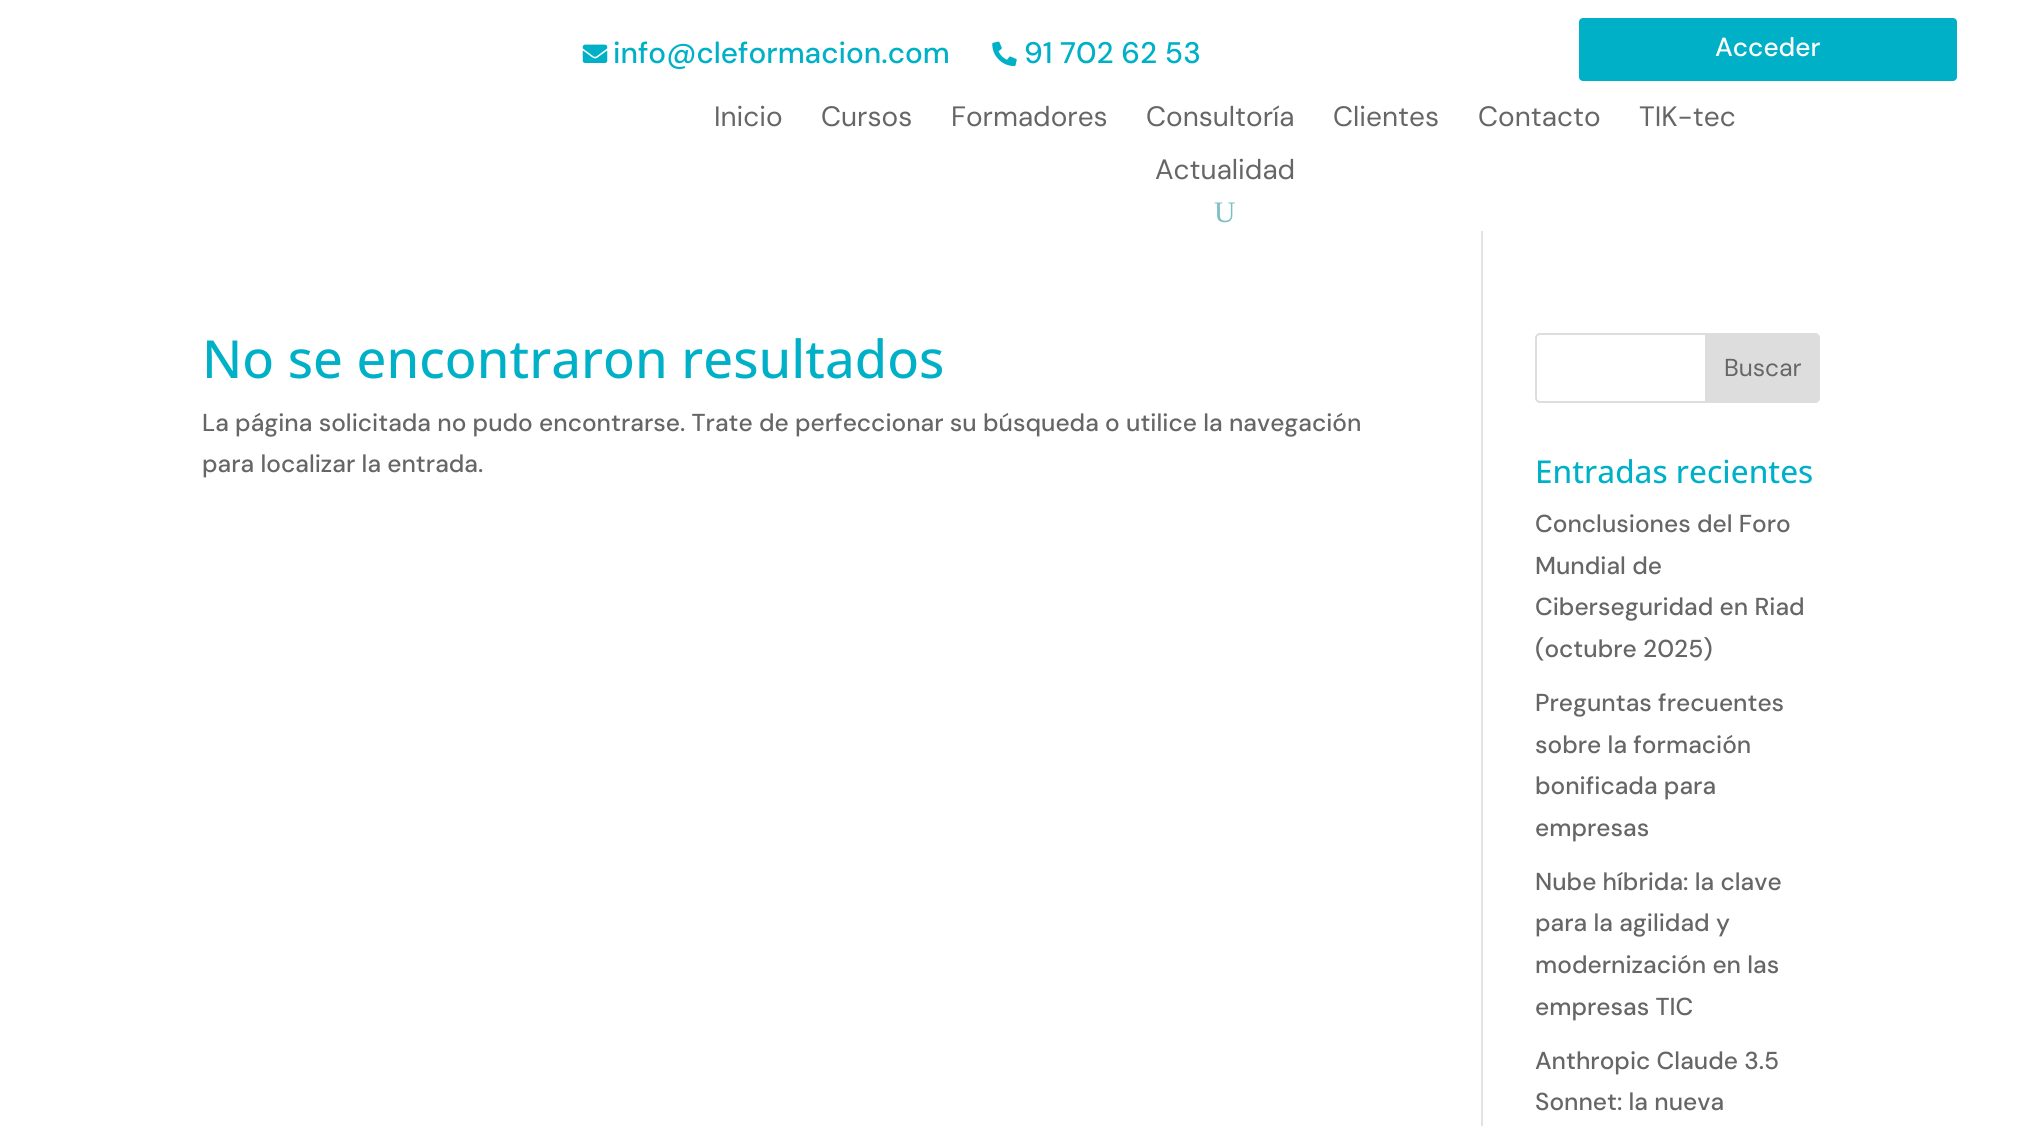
import math
import cairo



def rounded_rect(context, x, y, w, h, r):
    context.new_sub_path()
    for i, (u, v) in enumerate([(x + w - r, y + h - r), (x + r, y + h - r), (x + r, y + r), (x + w - r, y + r)]):
        context.arc(u, v, r, i * math.pi / 2, (i + 1) * math.pi / 2)
    context.close_path()


def draw_image(context, path, x, y, w, h):
    context.save()
    context.set_source_surface(cairo.ImageSurface.create_from_png(path), x, y)
    context.rectangle(x, y, w, h)
    context.fill()
    context.restore()


def draw(context):
    context.set_source_rgb(1, 1, 1)
    context.paint()
    draw_image(context, "images/1.png", 582, 44, 26, 19)
    draw_image(context, "images/2.png", 992, 41, 25, 26)
    context.set_source_rgb(0, 176 / 255, 199 / 255)
    rounded_rect(context, 1579, 18, 378, 63, 4)
    context.fill()
    context.set_source_rgb(226 / 255, 226 / 255, 226 / 255)
    context.rectangle(1481, 231, 2, 895)
    context.fill()
    rounded_rect(context, 1536, 334, 283, 68, 4)
    context.set_source_rgb(221 / 255, 221 / 255, 221 / 255)
    context.stroke()
    context.new_path()
    context.move_to(1706, 334)
    context.line_to(1815, 334)
    context.curve_to(1817, 334, 1819, 336, 1819, 338)
    context.line_to(1819, 398)
    context.curve_to(1819, 400, 1817, 402, 1815, 402)
    context.line_to(1706, 402)
    context.close_path()
    context.fill_preserve()
    context.stroke()
    context.select_font_face("DM Sans Medium")
    context.set_font_size(29.75)
    context.set_source_rgb(0, 176 / 255, 199 / 255)
    context.move_to(613, 63)
    context.show_text("info@cleformacion.com")
    context.move_to(1024, 63)
    context.show_text("91 702 62 53")
    context.set_font_size(26.25)
    context.set_source_rgb(1, 1, 1)
    context.move_to(1715, 56)
    context.show_text("Acceder")
    context.select_font_face("DM Sans")
    context.set_font_size(28)
    context.set_source_rgb(102 / 255, 102 / 255, 102 / 255)
    context.move_to(714, 126)
    context.show_text("Inicio")
    context.move_to(821, 126)
    context.show_text("Cursos")
    context.move_to(951, 126)
    context.show_text("Formadores")
    context.move_to(1146, 126)
    context.show_text("Consultoría")
    context.move_to(1333, 126)
    context.show_text("Clientes")
    context.move_to(1478, 126)
    context.show_text("Contacto")
    context.move_to(1639, 126)
    context.show_text("TIK-tec")
    context.move_to(1155, 179)
    context.show_text("Actualidad")
    context.select_font_face("Liberation Serif")
    context.set_font_size(29.75)
    context.set_source_rgb(126 / 255, 190 / 255, 197 / 255)
    context.move_to(1214, 222)
    context.show_text("U")
    context.select_font_face("Open Sans Medium")
    context.set_font_size(52.5)
    context.set_source_rgb(0, 176 / 255, 199 / 255)
    context.move_to(202, 378)
    context.show_text("No se encontraron resultados")
    context.select_font_face("DM Sans Medium")
    context.set_font_size(24.5)
    context.set_source_rgb(102 / 255, 102 / 255, 102 / 255)
    context.move_to(202, 431)
    context.show_text("La página solicitada no pudo encontrarse. Trate de perfeccionar su búsqueda o utilice la navegación")
    context.move_to(202, 472)
    context.show_text("para localizar la entrada.")
    context.select_font_face("DM Sans")
    context.move_to(1724, 376)
    context.show_text("Buscar")
    context.select_font_face("Open Sans Medium")
    context.set_font_size(31.5)
    context.set_source_rgb(0, 176 / 255, 199 / 255)
    context.move_to(1535, 483)
    context.show_text("Entradas recientes")
    context.select_font_face("DM Sans Medium")
    context.set_font_size(24.5)
    context.set_source_rgb(102 / 255, 102 / 255, 102 / 255)
    context.move_to(1535, 532)
    context.show_text("Conclusiones del Foro")
    context.move_to(1535, 574)
    context.show_text("Mundial de")
    context.move_to(1535, 615)
    context.show_text("Ciberseguridad en Riad")
    context.move_to(1535, 657)
    context.show_text("(octubre 2025)")
    context.move_to(1535, 711)
    context.show_text("Preguntas frecuentes")
    context.move_to(1535, 753)
    context.show_text("sobre la formación")
    context.move_to(1535, 794)
    context.show_text("bonificada para")
    context.move_to(1535, 836)
    context.show_text("empresas")
    context.move_to(1535, 890)
    context.show_text("Nube híbrida: la clave")
    context.move_to(1535, 931)
    context.show_text("para la agilidad y")
    context.move_to(1535, 973)
    context.show_text("modernización en las")
    context.move_to(1535, 1015)
    context.show_text("empresas TIC")
    context.move_to(1535, 1069)
    context.show_text("Anthropic Claude 3.5")
    context.move_to(1535, 1110)
    context.show_text("Sonnet: la nueva")


surface = cairo.ImageSurface(cairo.Format.RGB24, 2022, 1126)
context = cairo.Context(surface)
options = cairo.FontOptions()
options.set_hint_metrics(cairo.HintMetrics.OFF)
options.set_hint_style(cairo.HintStyle.NONE)
context.set_font_options(options)
context.set_miter_limit(4)
draw(context)
surface.write_to_png("out.png")
